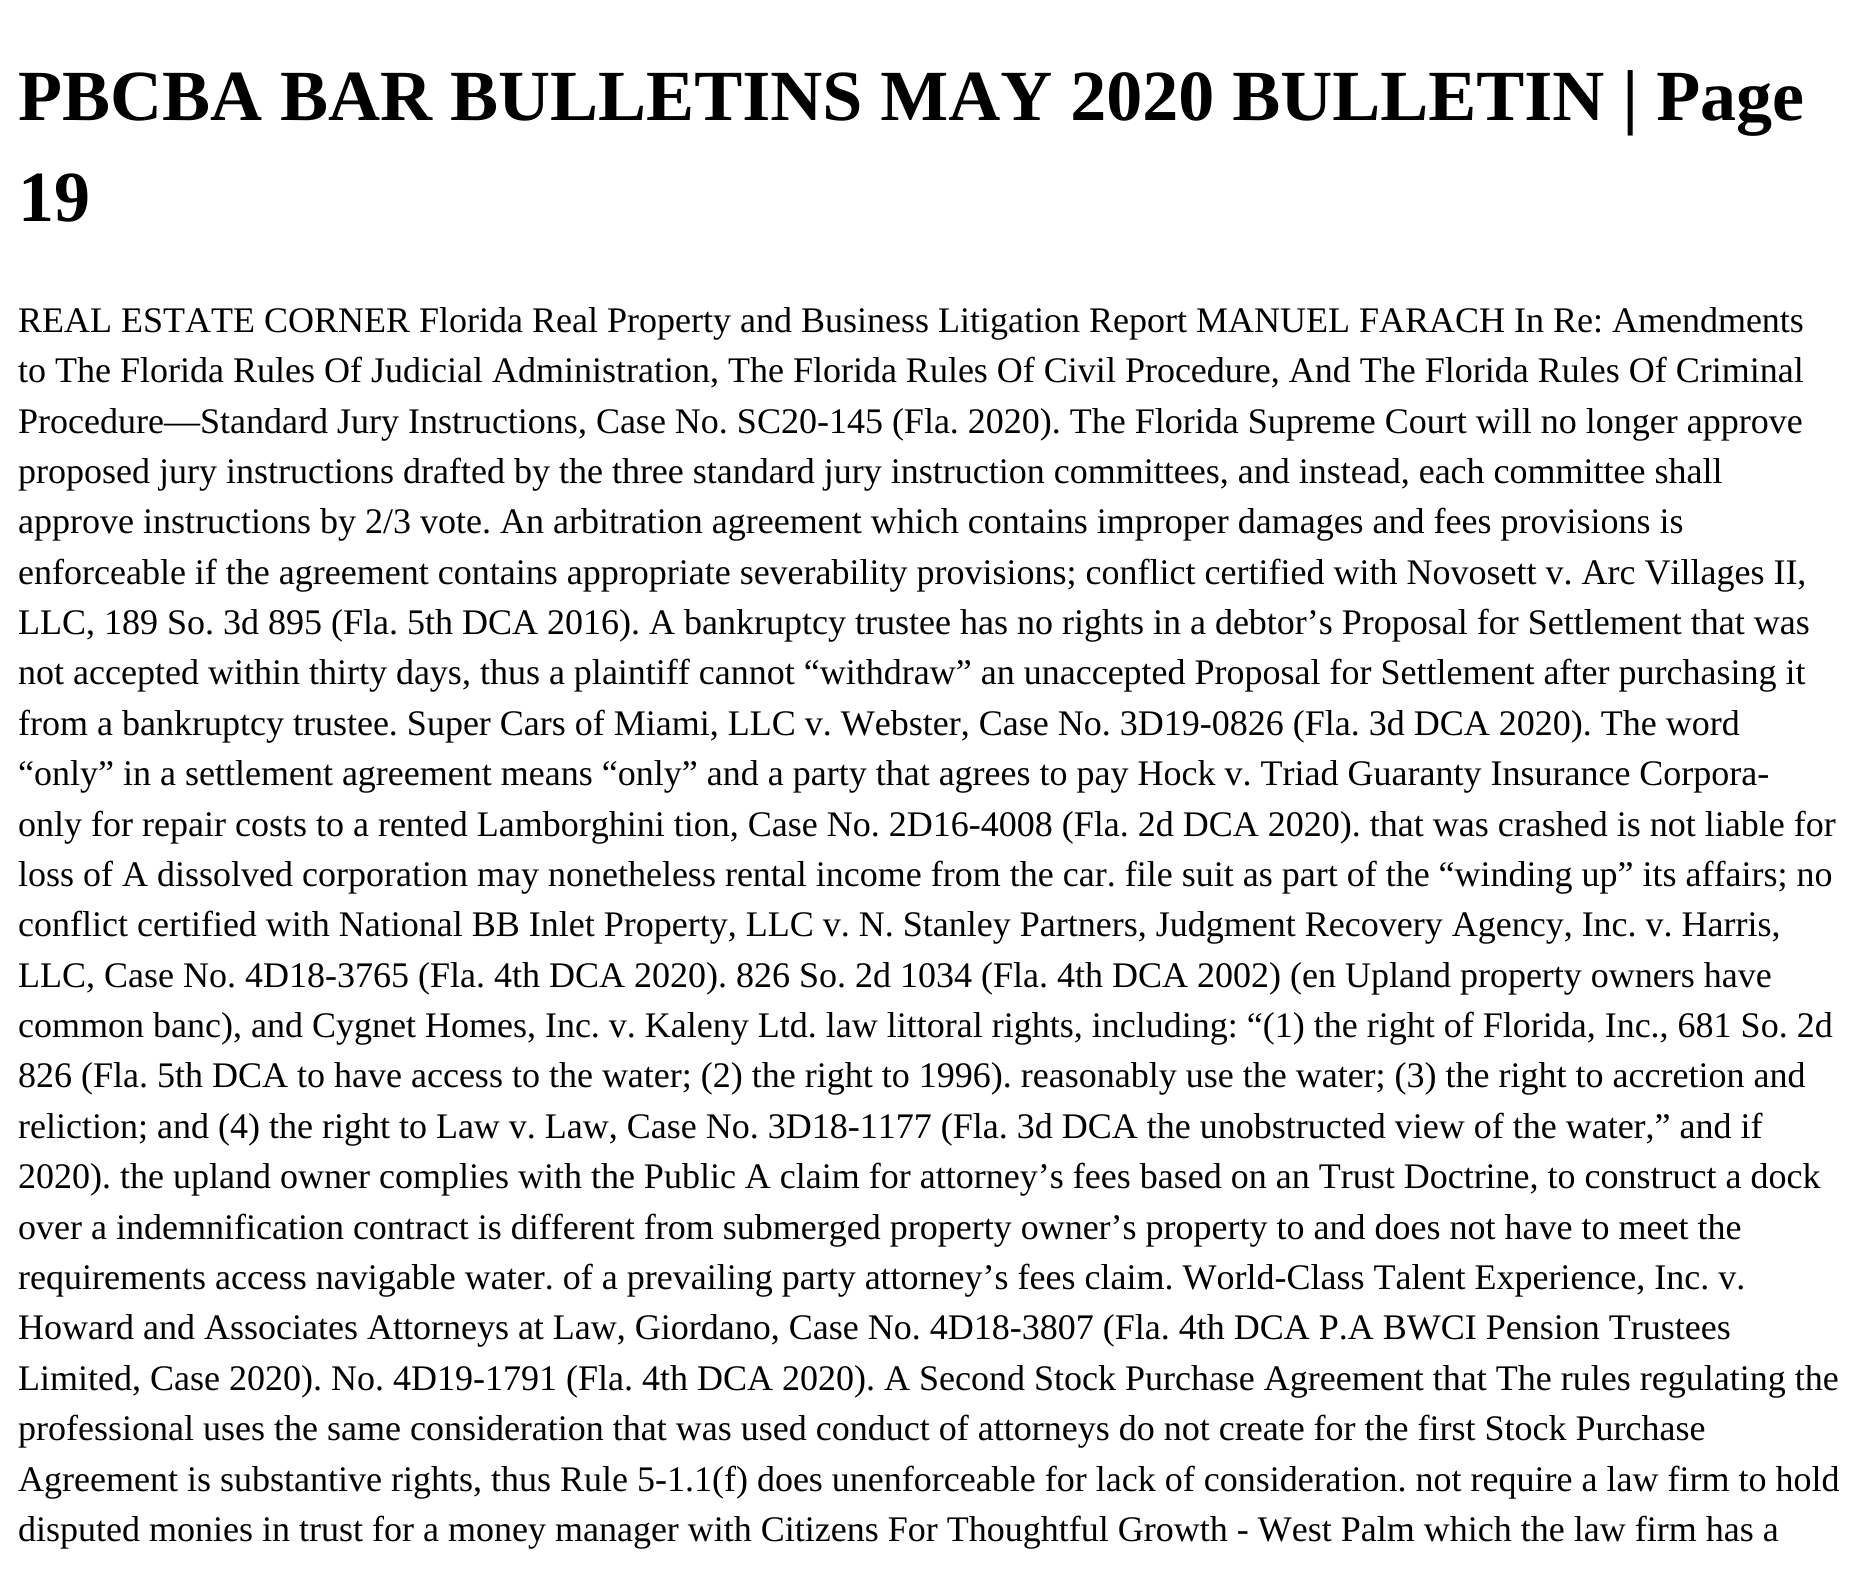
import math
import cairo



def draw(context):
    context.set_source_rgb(1, 1, 1)
    context.paint()
    context.select_font_face("Liberation Serif", cairo.FontSlant.NORMAL, cairo.FontWeight.BOLD)
    context.set_font_size(72)
    context.set_source_rgb(0, 0, 0)
    context.move_to(18, 120)
    context.show_text("PBCBA BAR BULLETINS MAY 2020 BULLETIN | Page")
    context.move_to(18, 221)
    context.show_text("19")
    context.select_font_face("Liberation Serif")
    context.set_font_size(36)
    context.move_to(18, 332)
    context.show_text("REAL ESTATE CORNER Florida Real Property and Business Litigation Report MANUEL FARACH In Re: Amendments")
    context.move_to(18, 382)
    context.show_text("to The Florida Rules Of Judicial Administration, The Florida Rules Of Civil Procedure, And The Florida Rules Of Criminal")
    context.move_to(18, 433)
    context.show_text("Procedure—Standard Jury Instructions, Case No. SC20-145 (Fla. 2020). The Florida Supreme Court will no longer approve")
    context.move_to(18, 483)
    context.show_text("proposed jury instructions drafted by the three standard jury instruction committees, and instead, each committee shall")
    context.move_to(18, 533)
    context.show_text("approve instructions by 2/3 vote. An arbitration agreement which contains improper damages and fees provisions is")
    context.move_to(18, 584)
    context.show_text("enforceable if the agreement contains appropriate severability provisions; conflict certified with Novosett v. Arc Villages II,")
    context.move_to(18, 634)
    context.show_text("LLC, 189 So. 3d 895 (Fla. 5th DCA 2016). A bankruptcy trustee has no rights in a debtor’s Proposal for Settlement that was")
    context.move_to(18, 684)
    context.show_text("not accepted within thirty days, thus a plaintiff cannot “withdraw” an unaccepted Proposal for Settlement after purchasing it")
    context.move_to(18, 735)
    context.show_text("from a bankruptcy trustee. Super Cars of Miami, LLC v. Webster, Case No. 3D19-0826 (Fla. 3d DCA 2020). The word")
    context.move_to(18, 785)
    context.show_text("“only” in a settlement agreement means “only” and a party that agrees to pay Hock v. Triad Guaranty Insurance Corpora-")
    context.move_to(18, 836)
    context.show_text("only for repair costs to a rented Lamborghini tion, Case No. 2D16-4008 (Fla. 2d DCA 2020). that was crashed is not liable for")
    context.move_to(18, 886)
    context.show_text("loss of A dissolved corporation may nonetheless rental income from the car. file suit as part of the “winding up” its affairs; no")
    context.move_to(18, 936)
    context.show_text("conflict certified with National BB Inlet Property, LLC v. N. Stanley Partners, Judgment Recovery Agency, Inc. v. Harris,")
    context.move_to(18, 987)
    context.show_text("LLC, Case No. 4D18-3765 (Fla. 4th DCA 2020). 826 So. 2d 1034 (Fla. 4th DCA 2002) (en Upland property owners have")
    context.move_to(18, 1037)
    context.show_text("common banc), and Cygnet Homes, Inc. v. Kaleny Ltd. law littoral rights, including: “(1) the right of Florida, Inc., 681 So. 2d")
    context.move_to(18, 1087)
    context.show_text("826 (Fla. 5th DCA to have access to the water; (2) the right to 1996). reasonably use the water; (3) the right to accretion and")
    context.move_to(18, 1138)
    context.show_text("reliction; and (4) the right to Law v. Law, Case No. 3D18-1177 (Fla. 3d DCA the unobstructed view of the water,” and if")
    context.move_to(18, 1188)
    context.show_text("2020). the upland owner complies with the Public A claim for attorney’s fees based on an Trust Doctrine, to construct a dock")
    context.move_to(18, 1239)
    context.show_text("over a indemnification contract is different from submerged property owner’s property to and does not have to meet the")
    context.move_to(18, 1289)
    context.show_text("requirements access navigable water. of a prevailing party attorney’s fees claim. World-Class Talent Experience, Inc. v.")
    context.move_to(18, 1339)
    context.show_text("Howard and Associates Attorneys at Law, Giordano, Case No. 4D18-3807 (Fla. 4th DCA P.A BWCI Pension Trustees")
    context.move_to(18, 1390)
    context.show_text("Limited, Case 2020). No. 4D19-1791 (Fla. 4th DCA 2020). A Second Stock Purchase Agreement that The rules regulating the")
    context.move_to(18, 1440)
    context.show_text("professional uses the same consideration that was used conduct of attorneys do not create for the first Stock Purchase")
    context.move_to(18, 1491)
    context.show_text("Agreement is substantive rights, thus Rule 5-1.1(f) does unenforceable for lack of consideration. not require a law firm to hold")
    context.move_to(18, 1541)
    context.show_text("disputed monies in trust for a money manager with Citizens For Thoughtful Growth - West Palm which the law firm has a")


surface = cairo.ImageSurface(cairo.Format.RGB24, 1858, 1583)
context = cairo.Context(surface)
options = cairo.FontOptions()
options.set_hint_metrics(cairo.HintMetrics.OFF)
options.set_hint_style(cairo.HintStyle.NONE)
context.set_font_options(options)
context.set_miter_limit(4)
draw(context)
surface.write_to_png("out.png")
